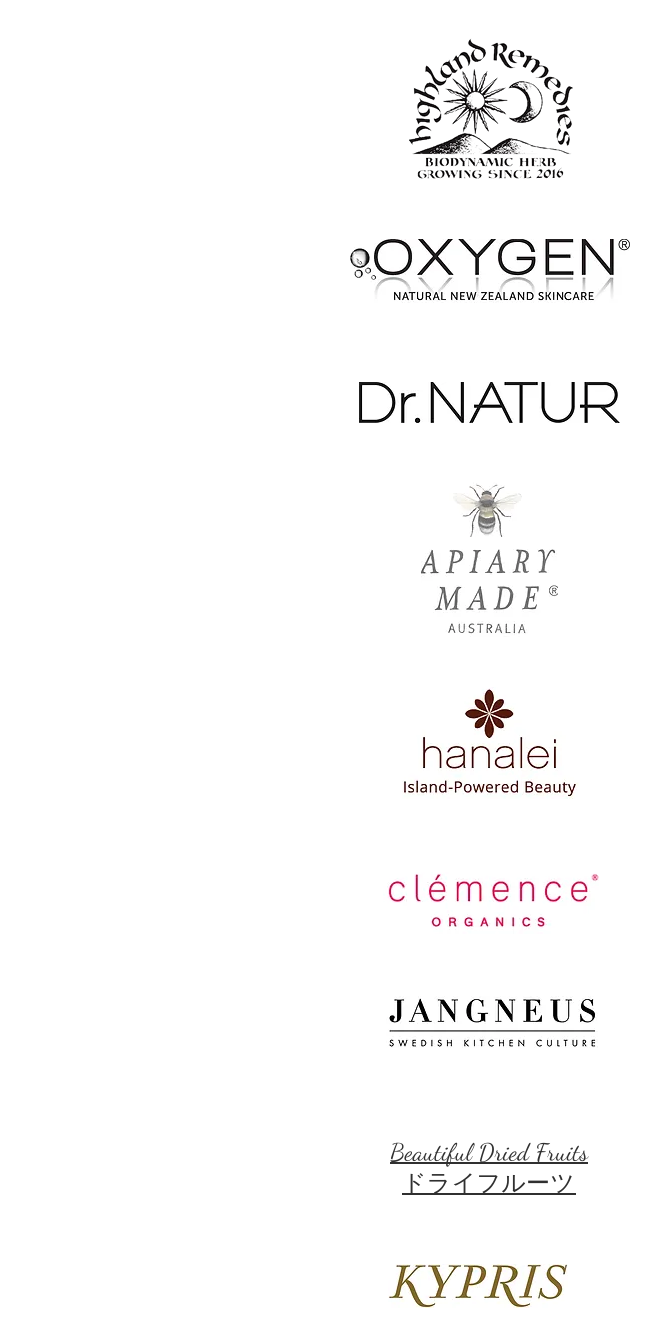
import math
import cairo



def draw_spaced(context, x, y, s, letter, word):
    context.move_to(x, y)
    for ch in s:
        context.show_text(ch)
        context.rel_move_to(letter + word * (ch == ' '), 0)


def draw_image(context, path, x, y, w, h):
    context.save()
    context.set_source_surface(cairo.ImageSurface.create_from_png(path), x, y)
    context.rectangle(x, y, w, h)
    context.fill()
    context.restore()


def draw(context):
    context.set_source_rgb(1, 1, 1)
    context.paint()
    draw_image(context, "images/1.png", 409, 38, 164, 141)
    draw_image(context, "images/2.png", 350, 239, 280, 64)
    draw_image(context, "images/3.png", 359, 382, 261, 41)
    draw_image(context, "images/4.png", 421, 482, 137, 155)
    draw_image(context, "images/5.png", 402, 687, 177, 112)
    draw_image(context, "images/6.png", 383, 872, 216, 62)
    draw_image(context, "images/7.png", 386, 996, 212, 52)
    context.set_source_rgb(48 / 255, 48 / 255, 48 / 255)
    context.rectangle(390, 1162, 198, 2)
    context.fill()
    context.rectangle(402, 1193, 174, 2)
    context.fill()
    draw_image(context, "images/8.png", 388, 1264, 180, 44)
    context.select_font_face("Dancing Script")
    context.set_font_size(24)
    draw_spaced(context, 390, 1160, "Beautiful Dried Fruits", 0.25, 0)
    context.select_font_face("WenQuanYi Zen Hei Medium")
    draw_spaced(context, 402, 1191, "ドライフルーツ", 0.25, 0)


surface = cairo.ImageSurface(cairo.Format.RGB24, 672, 1335)
context = cairo.Context(surface)
options = cairo.FontOptions()
options.set_hint_metrics(cairo.HintMetrics.OFF)
options.set_hint_style(cairo.HintStyle.NONE)
context.set_font_options(options)
context.set_miter_limit(4)
draw(context)
surface.write_to_png("out.png")
